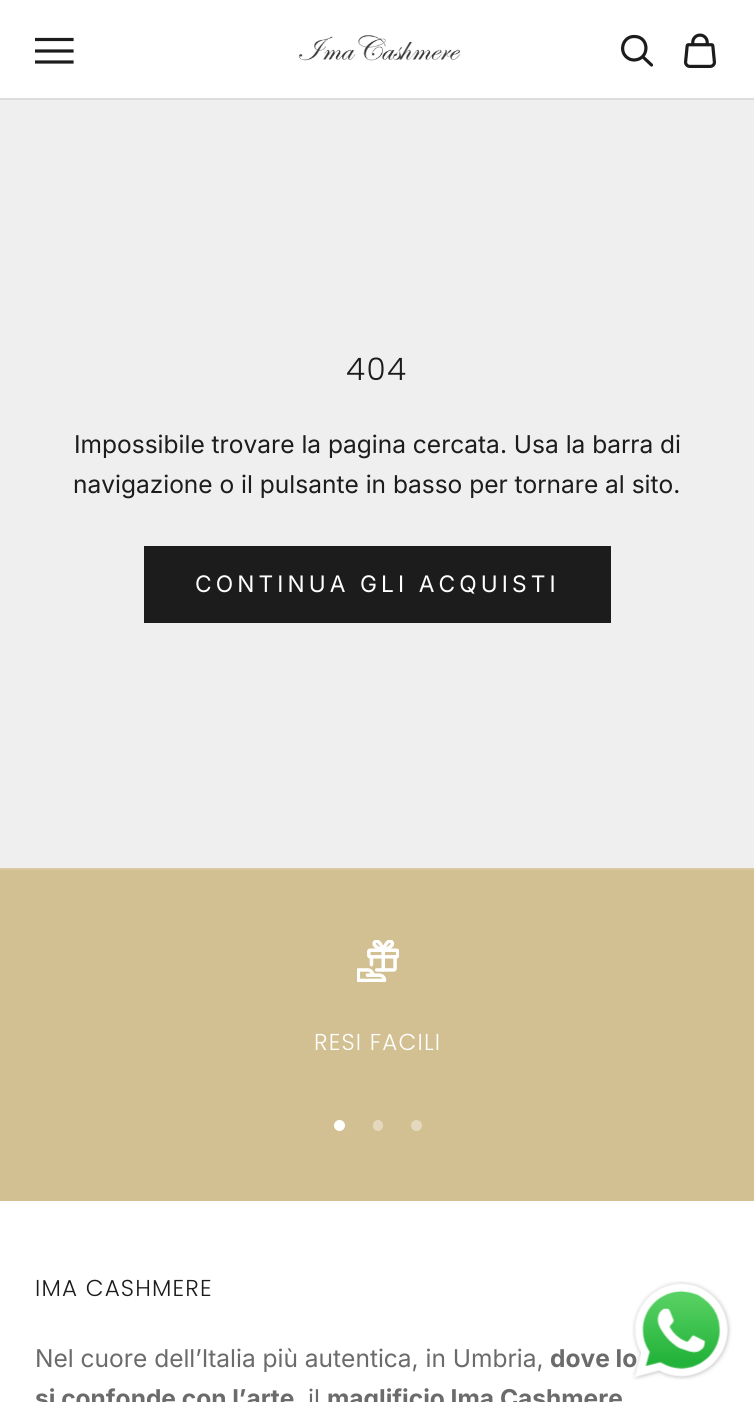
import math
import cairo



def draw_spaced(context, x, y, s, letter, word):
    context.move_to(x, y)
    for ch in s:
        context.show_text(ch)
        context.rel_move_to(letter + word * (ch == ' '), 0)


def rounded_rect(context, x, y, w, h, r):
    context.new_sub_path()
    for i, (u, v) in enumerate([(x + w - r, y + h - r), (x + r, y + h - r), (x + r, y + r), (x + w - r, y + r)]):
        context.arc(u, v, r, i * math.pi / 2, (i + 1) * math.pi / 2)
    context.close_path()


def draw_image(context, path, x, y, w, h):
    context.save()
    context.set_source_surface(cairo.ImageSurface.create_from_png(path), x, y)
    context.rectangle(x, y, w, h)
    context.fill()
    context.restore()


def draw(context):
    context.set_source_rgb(210 / 255, 192 / 255, 146 / 255)
    context.paint()
    context.set_source_rgb(1, 1, 1)
    context.rectangle(0, 0, 754, 98)
    context.fill()
    context.set_source_rgb(221 / 255, 221 / 255, 221 / 255)
    context.rectangle(0, 98, 754, 2)
    context.fill()
    context.save()
    context.rectangle(35, 32, 39, 38)
    context.clip()
    context.new_path()
    context.move_to(36.5, 62)
    context.line_to(72, 62)
    context.move_to(36.5, 51)
    context.line_to(72, 51)
    context.move_to(36.5, 39.5)
    context.line_to(72, 39.5)
    context.set_source_rgb(28 / 255, 28 / 255, 28 / 255)
    context.set_line_width(3.2)
    context.set_line_cap(cairo.LineCap.SQUARE)
    context.stroke()
    context.restore()
    draw_image(context, "images/1.png", 298, 35, 163, 26)
    context.new_path()
    context.move_to(634.5, 36.5)
    context.curve_to(622.5, 36, 618, 52.5, 628.5, 58.5)
    context.curve_to(630, 59.5, 632.5, 60, 634.5, 60)
    context.curve_to(650, 59, 649.5, 36.5, 634.5, 36.5)
    context.close_path()
    context.set_source_rgb(28 / 255, 28 / 255, 28 / 255)
    context.set_line_width(3.2)
    context.stroke()
    context.new_path()
    context.move_to(643, 57)
    context.line_to(651.5, 65)
    context.set_line_cap(cairo.LineCap.ROUND)
    context.stroke()
    draw_image(context, "images/2.png", 684, 33, 32, 35)
    context.set_source_rgb(239 / 255, 239 / 255, 239 / 255)
    context.rectangle(0, 100, 754, 768)
    context.fill()
    context.set_source_rgb(28 / 255, 28 / 255, 28 / 255)
    context.rectangle(145, 547, 465, 75)
    context.fill_preserve()
    context.set_line_width(2)
    context.set_line_cap(cairo.LineCap.BUTT)
    context.stroke()
    context.set_source_rgb(217 / 255, 201 / 255, 162 / 255)
    context.rectangle(0, 868, 754, 2)
    context.fill()
    draw_image(context, "images/3.png", 357, 940, 42, 42)
    context.set_source_rgb(1, 1, 1)
    context.arc(339.5, 1125.5, 5.5, 0, 2 * math.pi)
    context.fill()
    context.set_source_rgb(228 / 255, 217 / 255, 190 / 255)
    rounded_rect(context, 373, 1120, 10, 11, 5)
    context.fill()
    context.arc(416.5, 1125.5, 5.5, 0, 2 * math.pi)
    context.fill()
    context.set_source_rgb(1, 1, 1)
    context.rectangle(0, 1201, 754, 201)
    context.fill()
    context.select_font_face("Poppins Light")
    context.set_font_size(31)
    context.set_source_rgb(28 / 255, 28 / 255, 28 / 255)
    draw_spaced(context, 346, 380, "404", 1.5, 0)
    context.select_font_face("Inter")
    context.set_font_size(24.5)
    context.move_to(74, 453)
    context.show_text("Impossibile trovare la pagina cercata. Usa la barra di")
    context.move_to(73, 493)
    context.show_text("navigazione o il pulsante in basso per tornare al sito.")
    context.set_font_size(22.75)
    context.set_source_rgb(1, 1, 1)
    draw_spaced(context, 195, 592, "CONTINUA GLI ACQUISTI", 4.1, 0)
    context.select_font_face("Poppins Light")
    context.set_font_size(23)
    draw_spaced(context, 314, 1050, "RESI FACILI", 1.2, 0)
    context.set_source_rgb(28 / 255, 28 / 255, 28 / 255)
    draw_spaced(context, 35, 1296, "IMA CASHMERE", 1.2, 0)
    context.select_font_face("Inter")
    context.set_font_size(24.5)
    context.set_source_rgb(107 / 255, 107 / 255, 107 / 255)
    context.move_to(35, 1367)
    context.show_text("Nel cuore dell’Italia più autentica, in Umbria,")
    context.select_font_face("Inter", cairo.FontSlant.NORMAL, cairo.FontWeight.BOLD)
    context.move_to(550, 1367)
    context.show_text("dove lo")
    context.move_to(35, 1407)
    context.show_text("si confonde con l’arte")
    context.select_font_face("Inter")
    context.move_to(308, 1407)
    context.show_text("il")
    context.select_font_face("Inter", cairo.FontSlant.NORMAL, cairo.FontWeight.BOLD)
    context.move_to(327, 1407)
    context.show_text("maglificio Ima Cashmere")
    draw_image(context, "images/4.png", 632, 1281, 100, 99)


surface = cairo.ImageSurface(cairo.Format.RGB24, 754, 1402)
context = cairo.Context(surface)
options = cairo.FontOptions()
options.set_hint_metrics(cairo.HintMetrics.OFF)
options.set_hint_style(cairo.HintStyle.NONE)
context.set_font_options(options)
context.set_miter_limit(4)
draw(context)
surface.write_to_png("out.png")
